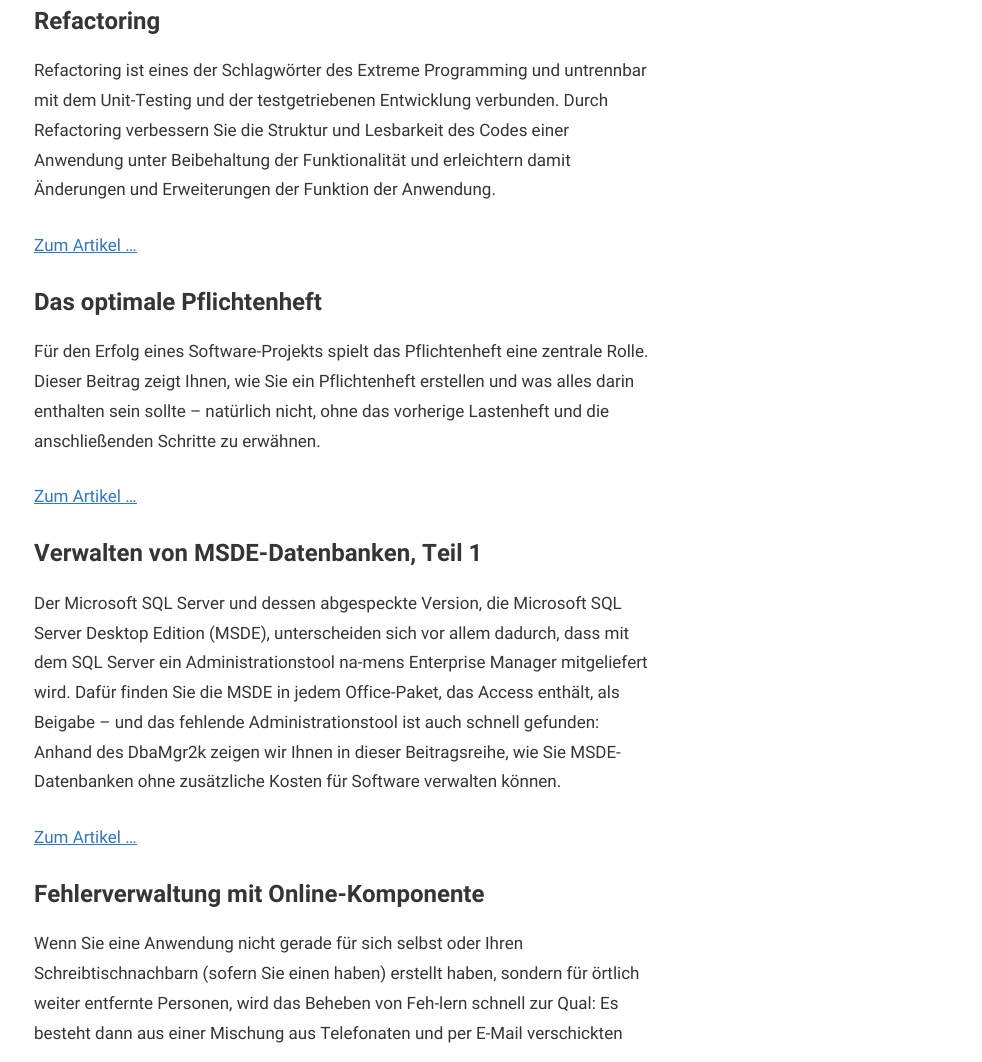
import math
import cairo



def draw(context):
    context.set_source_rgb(1, 1, 1)
    context.paint()
    context.set_source_rgb(51 / 255, 119 / 255, 187 / 255)
    context.rectangle(34, 252, 103, 1)
    context.fill()
    context.rectangle(34, 503, 103, 1)
    context.fill()
    context.rectangle(34, 844, 103, 1)
    context.fill()
    context.select_font_face("Roboto", cairo.FontSlant.NORMAL, cairo.FontWeight.BOLD)
    context.set_font_size(24)
    context.set_source_rgb(53 / 255, 53 / 255, 53 / 255)
    context.move_to(34, 29)
    context.show_text("Refactoring")
    context.select_font_face("Roboto")
    context.set_font_size(17)
    context.move_to(34, 76)
    context.show_text("Refactoring ist eines der Schlagwörter des Extreme Programming und untrennbar")
    context.move_to(34, 106)
    context.show_text("mit dem Unit-Testing und der testgetriebenen Entwicklung verbunden. Durch")
    context.move_to(34, 136)
    context.show_text("Refactoring verbessern Sie die Struktur und Lesbarkeit des Codes einer")
    context.move_to(34, 166)
    context.show_text("Anwendung unter Beibehaltung der Funktionalität und erleichtern damit")
    context.move_to(34, 195)
    context.show_text("Änderungen und Erweiterungen der Funktion der Anwendung.")
    context.set_source_rgb(51 / 255, 119 / 255, 187 / 255)
    context.move_to(34, 251)
    context.show_text("Zum Artikel …")
    context.select_font_face("Roboto", cairo.FontSlant.NORMAL, cairo.FontWeight.BOLD)
    context.set_font_size(24)
    context.set_source_rgb(53 / 255, 53 / 255, 53 / 255)
    context.move_to(34, 310)
    context.show_text("Das optimale Pflichtenheft")
    context.select_font_face("Roboto")
    context.set_font_size(17)
    context.move_to(34, 357)
    context.show_text("Für den Erfolg eines Software-Projekts spielt das Pflichtenheft eine zentrale Rolle.")
    context.move_to(34, 387)
    context.show_text("Dieser Beitrag zeigt Ihnen, wie Sie ein Pflichtenheft erstellen und was alles darin")
    context.move_to(34, 417)
    context.show_text("enthalten sein sollte – natürlich nicht, ohne das vorherige Lastenheft und die")
    context.move_to(34, 447)
    context.show_text("anschließenden Schritte zu erwähnen.")
    context.set_source_rgb(51 / 255, 119 / 255, 187 / 255)
    context.move_to(34, 502)
    context.show_text("Zum Artikel …")
    context.select_font_face("Roboto", cairo.FontSlant.NORMAL, cairo.FontWeight.BOLD)
    context.set_font_size(24)
    context.set_source_rgb(53 / 255, 53 / 255, 53 / 255)
    context.move_to(34, 561)
    context.show_text("Verwalten von MSDE-Datenbanken, Teil 1")
    context.select_font_face("Roboto")
    context.set_font_size(17)
    context.move_to(34, 609)
    context.show_text("Der Microsoft SQL Server und dessen abgespeckte Version, die Microsoft SQL")
    context.move_to(34, 639)
    context.show_text("Server Desktop Edition (MSDE), unterscheiden sich vor allem dadurch, dass mit")
    context.move_to(34, 668)
    context.show_text("dem SQL Server ein Administrationstool na-mens Enterprise Manager mitgeliefert")
    context.move_to(34, 698)
    context.show_text("wird. Dafür finden Sie die MSDE in jedem Office-Paket, das Access enthält, als")
    context.move_to(34, 728)
    context.show_text("Beigabe – und das fehlende Administrationstool ist auch schnell gefunden:")
    context.move_to(34, 758)
    context.show_text("Anhand des DbaMgr2k zeigen wir Ihnen in dieser Beitragsreihe, wie Sie MSDE-")
    context.move_to(34, 787)
    context.show_text("Datenbanken ohne zusätzliche Kosten für Software verwalten können.")
    context.set_source_rgb(51 / 255, 119 / 255, 187 / 255)
    context.move_to(34, 843)
    context.show_text("Zum Artikel …")
    context.select_font_face("Roboto", cairo.FontSlant.NORMAL, cairo.FontWeight.BOLD)
    context.set_font_size(24)
    context.set_source_rgb(53 / 255, 53 / 255, 53 / 255)
    context.move_to(34, 902)
    context.show_text("Fehlerverwaltung mit Online-Komponente")
    context.select_font_face("Roboto")
    context.set_font_size(17)
    context.move_to(34, 949)
    context.show_text("Wenn Sie eine Anwendung nicht gerade für sich selbst oder Ihren")
    context.move_to(34, 979)
    context.show_text("Schreibtischnachbarn (sofern Sie einen haben) erstellt haben, sondern für örtlich")
    context.move_to(34, 1009)
    context.show_text("weiter entfernte Personen, wird das Beheben von Feh-lern schnell zur Qual: Es")
    context.move_to(34, 1039)
    context.show_text("besteht dann aus einer Mischung aus Telefonaten und per E-Mail verschickten")


surface = cairo.ImageSurface(cairo.Format.RGB24, 982, 1062)
context = cairo.Context(surface)
options = cairo.FontOptions()
options.set_hint_metrics(cairo.HintMetrics.OFF)
options.set_hint_style(cairo.HintStyle.NONE)
context.set_font_options(options)
context.set_miter_limit(4)
draw(context)
surface.write_to_png("out.png")
